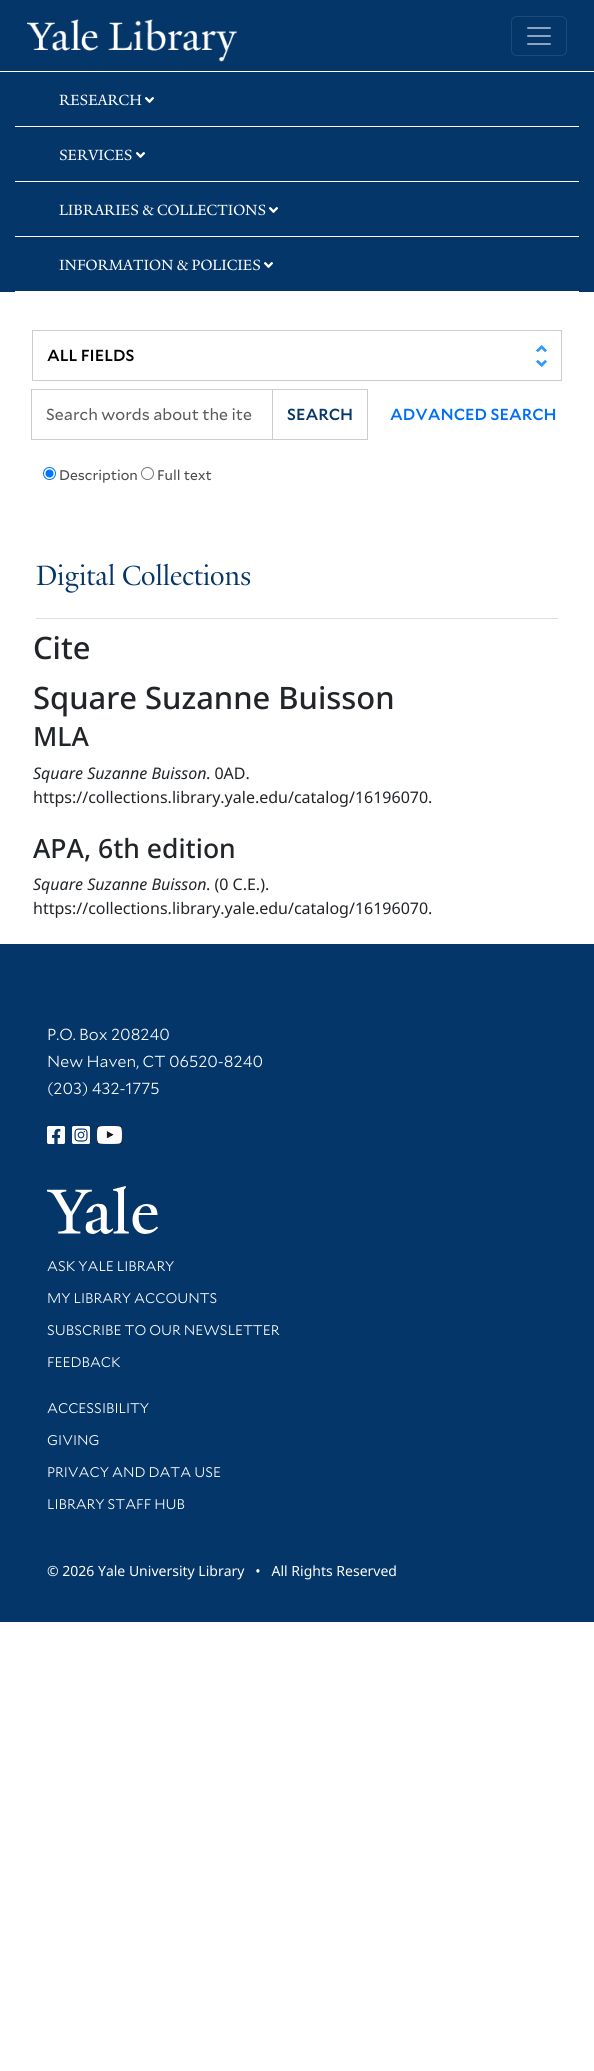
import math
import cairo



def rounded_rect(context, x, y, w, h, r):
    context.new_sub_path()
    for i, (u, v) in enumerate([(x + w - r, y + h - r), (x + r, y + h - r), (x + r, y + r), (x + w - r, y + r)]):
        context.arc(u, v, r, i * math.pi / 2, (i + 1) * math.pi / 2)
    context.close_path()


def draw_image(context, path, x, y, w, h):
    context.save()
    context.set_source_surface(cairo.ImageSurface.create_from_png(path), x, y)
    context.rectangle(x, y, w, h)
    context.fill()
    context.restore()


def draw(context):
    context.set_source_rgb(1, 1, 1)
    context.paint()
    context.set_source_rgb(4 / 255, 54 / 255, 105 / 255)
    context.rectangle(0, 0, 594, 71)
    context.fill()
    draw_image(context, "images/1.png", 27, 19, 210, 43)
    rounded_rect(context, 511.5, 16.5, 55, 39, 5.5)
    context.set_source_rgb(29 / 255, 74 / 255, 120 / 255)
    context.set_line_width(1)
    context.stroke()
    draw_image(context, "images/2.png", 527, 27, 24, 18)
    context.set_source_rgb(4 / 255, 54 / 255, 105 / 255)
    context.rectangle(0, 72, 594, 220)
    context.fill()
    context.set_source_rgb(1, 1, 1)
    context.rectangle(15, 126, 564, 1)
    context.fill()
    draw_image(context, "images/3.png", 145, 97, 9, 6)
    context.rectangle(15, 181, 564, 1)
    context.fill()
    draw_image(context, "images/3.png", 136, 152, 9, 6)
    context.rectangle(15, 236, 564, 1)
    context.fill()
    draw_image(context, "images/3.png", 269, 207, 9, 6)
    context.rectangle(15, 291, 564, 1)
    context.fill()
    draw_image(context, "images/3.png", 264, 262, 9, 6)
    draw_image(context, "images/4.png", 536, 345, 11, 22)
    context.rectangle(32.5, 330.5, 529, 50)
    context.set_source_rgb(204 / 255, 204 / 255, 204 / 255)
    context.stroke()
    context.rectangle(31.5, 389.5, 241, 50)
    context.stroke()
    context.rectangle(272.5, 389.5, 95, 50)
    context.stroke()
    context.arc(49.5, 473.5, 6, 0, 2 * math.pi)
    context.set_source_rgb(0, 117 / 255, 1)
    context.stroke()
    context.arc(49.5, 473.5, 4, 0, 2 * math.pi)
    context.fill()
    context.arc(147.5, 473.5, 6, 0, 2 * math.pi)
    context.set_source_rgb(118 / 255, 118 / 255, 118 / 255)
    context.stroke()
    context.set_source_rgb(221 / 255, 221 / 255, 221 / 255)
    context.rectangle(36, 618, 522, 1)
    context.fill()
    context.set_source_rgb(4 / 255, 54 / 255, 105 / 255)
    context.rectangle(0, 944, 594, 678)
    context.fill()
    draw_image(context, "images/5.png", 47, 1126, 18, 18)
    draw_image(context, "images/6.png", 72, 1126, 18, 18)
    draw_image(context, "images/7.png", 97, 1126, 25, 18)
    draw_image(context, "images/8.png", 47, 1186, 111, 48)
    context.select_font_face("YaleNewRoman")
    context.set_font_size(16)
    context.set_source_rgb(1, 1, 1)
    context.move_to(59, 105)
    context.show_text("RESEARCH")
    context.move_to(59, 160)
    context.show_text("SERVICES")
    context.move_to(59, 215)
    context.show_text("LIBRARIES & COLLECTIONS")
    context.move_to(59, 270)
    context.show_text("INFORMATION & POLICIES")
    context.select_font_face("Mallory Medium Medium")
    context.set_source_rgb(0, 0, 0)
    context.move_to(47, 361)
    context.show_text("ALL FIELDS")
    context.select_font_face("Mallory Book")
    context.set_source_rgb(89 / 255, 92 / 255, 95 / 255)
    context.move_to(46, 420)
    context.show_text("Search words about the ite")
    context.select_font_face("Mallory Medium Medium")
    context.set_source_rgb(4 / 255, 54 / 255, 105 / 255)
    context.move_to(287, 420)
    context.show_text("SEARCH")
    context.set_source_rgb(0, 110 / 255, 245 / 255)
    context.move_to(390, 420)
    context.show_text("ADVANCED SEARCH")
    context.select_font_face("Mallory Book")
    context.set_font_size(14)
    context.set_source_rgb(74 / 255, 74 / 255, 74 / 255)
    context.move_to(59, 480)
    context.show_text("Description")
    context.move_to(157, 480)
    context.show_text("Full text")
    context.select_font_face("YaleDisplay")
    context.set_font_size(30)
    context.set_source_rgb(4 / 255, 54 / 255, 105 / 255)
    context.move_to(36, 585)
    context.show_text("Digital Collections")
    context.select_font_face("Noto Sans Medium")
    context.set_font_size(30.9)
    context.set_source_rgb(33 / 255, 37 / 255, 41 / 255)
    context.move_to(33, 659)
    context.show_text("Cite")
    context.move_to(33, 709)
    context.show_text("Square Suzanne Buisson")
    context.set_font_size(26.5)
    context.move_to(33, 746)
    context.show_text("MLA")
    context.select_font_face("Noto Sans", cairo.FontSlant.ITALIC)
    context.set_font_size(16)
    context.move_to(33, 779)
    context.show_text("Square Suzanne Buisson")
    context.select_font_face("Noto Sans")
    context.move_to(206, 779)
    context.show_text(". 0AD.")
    context.move_to(33, 803)
    context.show_text("https://collections.library.yale.edu/catalog/16196070.")
    context.select_font_face("Noto Sans Medium")
    context.set_font_size(26.5)
    context.move_to(33, 858)
    context.show_text("APA, 6th edition")
    context.select_font_face("Noto Sans", cairo.FontSlant.ITALIC)
    context.set_font_size(16)
    context.move_to(33, 890)
    context.show_text("Square Suzanne Buisson")
    context.select_font_face("Noto Sans")
    context.move_to(206, 890)
    context.show_text(". (0 C.E.).")
    context.move_to(33, 914)
    context.show_text("https://collections.library.yale.edu/catalog/16196070.")
    context.select_font_face("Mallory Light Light")
    context.set_source_rgb(1, 1, 1)
    context.move_to(47, 1040)
    context.show_text("P.O. Box 208240")
    context.move_to(47, 1067)
    context.show_text("New Haven, CT 06520-8240")
    context.move_to(47, 1094)
    context.show_text("(203) 432-1775")
    context.set_font_size(14)
    context.move_to(47, 1271)
    context.show_text("ASK YALE LIBRARY")
    context.move_to(47, 1303)
    context.show_text("MY LIBRARY ACCOUNTS")
    context.move_to(47, 1335)
    context.show_text("SUBSCRIBE TO OUR NEWSLETTER")
    context.move_to(47, 1367)
    context.show_text("FEEDBACK")
    context.move_to(47, 1413)
    context.show_text("ACCESSIBILITY")
    context.move_to(47, 1445)
    context.show_text("GIVING")
    context.move_to(47, 1477)
    context.show_text("PRIVACY AND DATA USE")
    context.move_to(47, 1509)
    context.show_text("LIBRARY STAFF HUB")
    context.select_font_face("Noto Sans")
    context.move_to(47, 1576)
    context.show_text("© 2026 Yale University Library   •   All Rights Reserved")


surface = cairo.ImageSurface(cairo.Format.RGB24, 594, 2071)
context = cairo.Context(surface)
options = cairo.FontOptions()
options.set_hint_metrics(cairo.HintMetrics.OFF)
options.set_hint_style(cairo.HintStyle.NONE)
context.set_font_options(options)
context.set_miter_limit(4)
draw(context)
surface.write_to_png("out.png")
